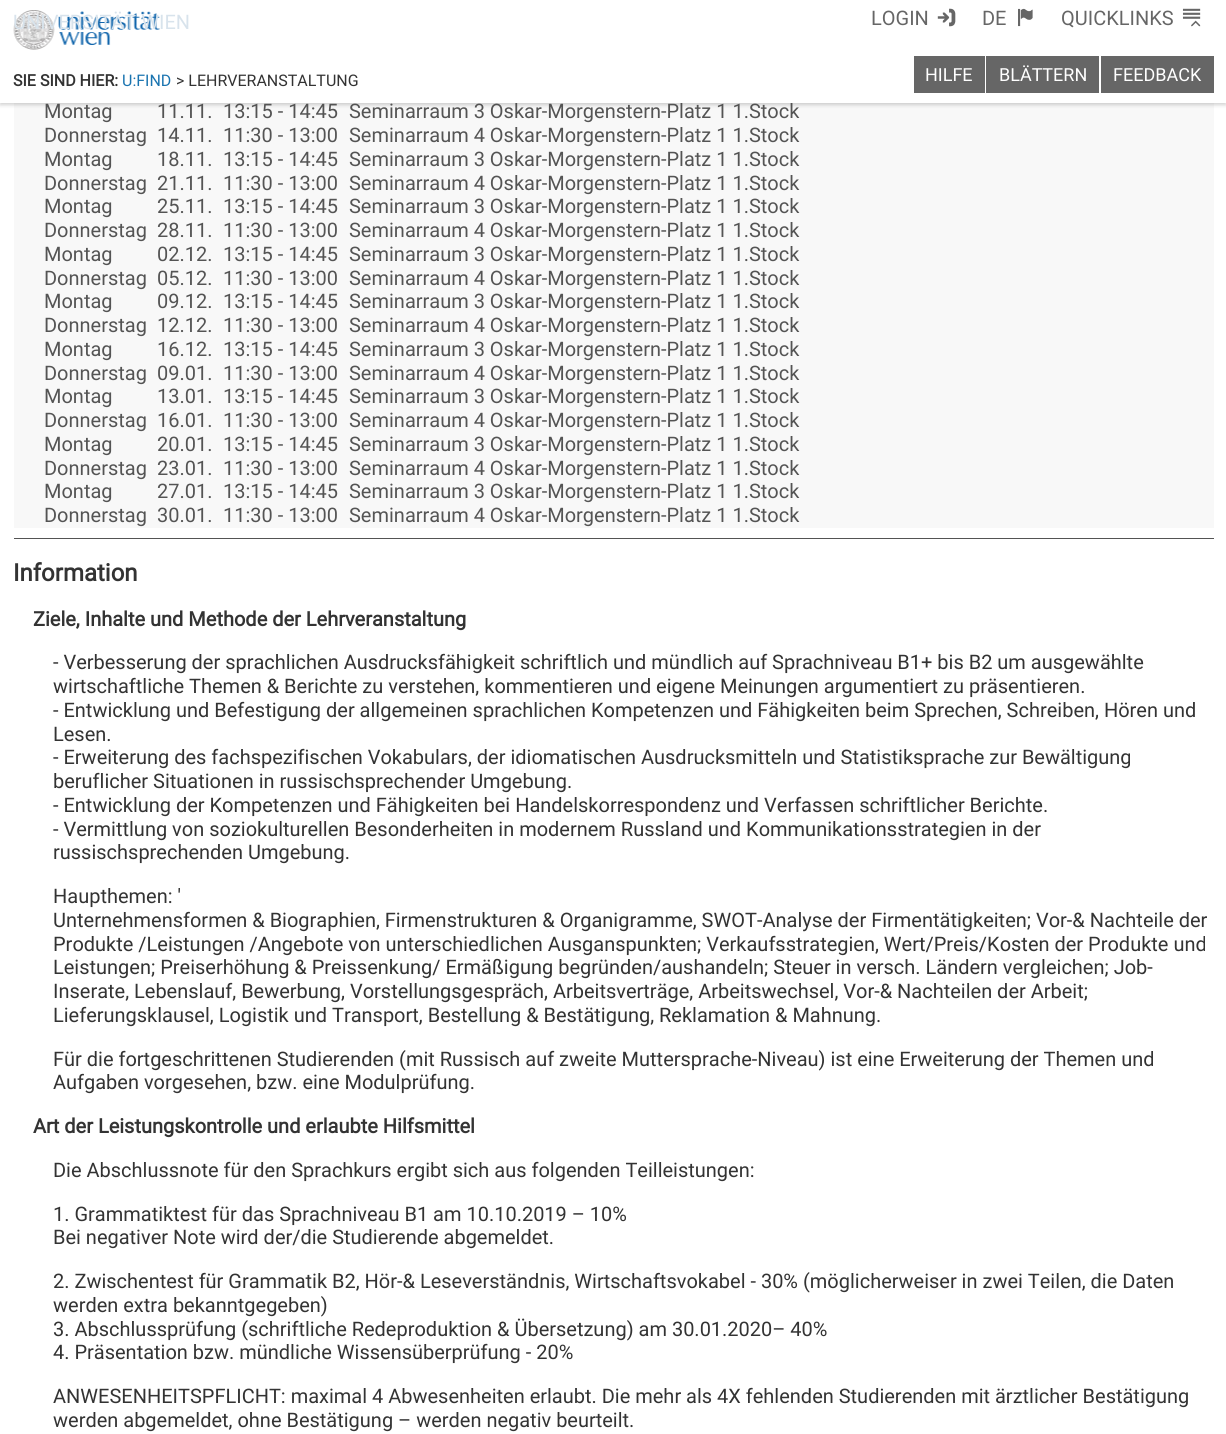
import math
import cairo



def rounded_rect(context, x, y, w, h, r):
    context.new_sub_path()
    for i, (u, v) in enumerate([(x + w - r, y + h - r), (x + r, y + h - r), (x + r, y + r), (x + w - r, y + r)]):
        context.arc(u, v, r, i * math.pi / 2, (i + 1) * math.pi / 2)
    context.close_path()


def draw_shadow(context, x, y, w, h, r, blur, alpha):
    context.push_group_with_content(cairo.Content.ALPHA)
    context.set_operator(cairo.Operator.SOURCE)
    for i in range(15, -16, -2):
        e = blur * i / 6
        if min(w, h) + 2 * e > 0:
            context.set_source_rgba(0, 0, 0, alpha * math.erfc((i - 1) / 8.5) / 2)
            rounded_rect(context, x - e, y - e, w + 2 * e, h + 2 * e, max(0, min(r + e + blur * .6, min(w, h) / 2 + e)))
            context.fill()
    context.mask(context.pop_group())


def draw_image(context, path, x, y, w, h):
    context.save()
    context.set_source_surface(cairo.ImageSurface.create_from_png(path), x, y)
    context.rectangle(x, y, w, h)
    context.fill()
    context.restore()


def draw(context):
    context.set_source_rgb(1, 1, 1)
    context.paint()
    context.set_source_rgb(248 / 255, 248 / 255, 248 / 255)
    context.rectangle(14, 103, 1200, 425)
    context.fill()
    context.set_source_rgb(0, 0, 0)
    draw_shadow(context, 0, 3, 1226, 102, 0, 2, 0.18)
    context.set_source_rgb(1, 1, 1)
    context.rectangle(0, 0, 1226, 103)
    context.fill()
    draw_image(context, "images/1.png", 13, 10, 147, 40)
    draw_image(context, "images/2.png", 937, 8, 19, 19)
    draw_image(context, "images/3.png", 1018, 8, 15, 19)
    draw_image(context, "images/4.png", 1182, 8, 19, 19)
    context.set_source_rgb(102 / 255, 102 / 255, 102 / 255)
    context.rectangle(914, 56, 71, 37)
    context.fill()
    context.rectangle(986, 56, 113, 37)
    context.fill()
    context.rectangle(1101, 56, 113, 37)
    context.fill()
    context.set_source_rgb(84 / 255, 84 / 255, 84 / 255)
    context.rectangle(14, 538, 1200, 1)
    context.fill()
    context.select_font_face("Roboto")
    context.set_font_size(20)
    context.set_source_rgb(216 / 255, 227 / 255, 236 / 255)
    context.move_to(13, 29)
    context.show_text("UNIVERSITÄT WIEN")
    context.set_source_rgb(102 / 255, 102 / 255, 102 / 255)
    context.move_to(871, 25)
    context.show_text("LOGIN")
    context.move_to(982, 25)
    context.show_text("DE")
    context.move_to(1061, 25)
    context.show_text("QUICKLINKS")
    context.set_font_size(18)
    context.set_source_rgb(1, 1, 1)
    context.move_to(925, 81)
    context.show_text("HILFE")
    context.move_to(999, 81)
    context.show_text("BLÄTTERN")
    context.move_to(1113, 81)
    context.show_text("FEEDBACK")
    context.select_font_face("Roboto", cairo.FontSlant.NORMAL, cairo.FontWeight.BOLD)
    context.set_font_size(16)
    context.set_source_rgb(51 / 255, 51 / 255, 51 / 255)
    context.move_to(13, 86)
    context.show_text("SIE SIND HIER:")
    context.select_font_face("Roboto")
    context.set_source_rgb(26 / 255, 116 / 255, 176 / 255)
    context.move_to(122, 86)
    context.show_text("U:FIND")
    context.set_source_rgb(51 / 255, 51 / 255, 51 / 255)
    context.move_to(176, 86)
    context.show_text("> LEHRVERANSTALTUNG")
    context.set_font_size(20)
    context.set_source_rgb(84 / 255, 84 / 255, 84 / 255)
    context.move_to(44, 118)
    context.show_text("Montag")
    context.move_to(157, 118)
    context.show_text("11.11.")
    context.move_to(223, 118)
    context.show_text("13:15 - 14:45")
    context.move_to(349, 118)
    context.show_text("Seminarraum 3 Oskar-Morgenstern-Platz 1 1.Stock")
    context.move_to(44, 142)
    context.show_text("Donnerstag")
    context.move_to(157, 142)
    context.show_text("14.11.")
    context.move_to(223, 142)
    context.show_text("11:30 - 13:00")
    context.move_to(349, 142)
    context.show_text("Seminarraum 4 Oskar-Morgenstern-Platz 1 1.Stock")
    context.move_to(44, 166)
    context.show_text("Montag")
    context.move_to(157, 166)
    context.show_text("18.11.")
    context.move_to(223, 166)
    context.show_text("13:15 - 14:45")
    context.move_to(349, 166)
    context.show_text("Seminarraum 3 Oskar-Morgenstern-Platz 1 1.Stock")
    context.move_to(44, 190)
    context.show_text("Donnerstag")
    context.move_to(157, 190)
    context.show_text("21.11.")
    context.move_to(223, 190)
    context.show_text("11:30 - 13:00")
    context.move_to(349, 190)
    context.show_text("Seminarraum 4 Oskar-Morgenstern-Platz 1 1.Stock")
    context.move_to(44, 213)
    context.show_text("Montag")
    context.move_to(157, 213)
    context.show_text("25.11.")
    context.move_to(223, 213)
    context.show_text("13:15 - 14:45")
    context.move_to(349, 213)
    context.show_text("Seminarraum 3 Oskar-Morgenstern-Platz 1 1.Stock")
    context.move_to(44, 237)
    context.show_text("Donnerstag")
    context.move_to(157, 237)
    context.show_text("28.11.")
    context.move_to(223, 237)
    context.show_text("11:30 - 13:00")
    context.move_to(349, 237)
    context.show_text("Seminarraum 4 Oskar-Morgenstern-Platz 1 1.Stock")
    context.move_to(44, 261)
    context.show_text("Montag")
    context.move_to(157, 261)
    context.show_text("02.12.")
    context.move_to(223, 261)
    context.show_text("13:15 - 14:45")
    context.move_to(349, 261)
    context.show_text("Seminarraum 3 Oskar-Morgenstern-Platz 1 1.Stock")
    context.move_to(44, 285)
    context.show_text("Donnerstag")
    context.move_to(157, 285)
    context.show_text("05.12.")
    context.move_to(223, 285)
    context.show_text("11:30 - 13:00")
    context.move_to(349, 285)
    context.show_text("Seminarraum 4 Oskar-Morgenstern-Platz 1 1.Stock")
    context.move_to(44, 308)
    context.show_text("Montag")
    context.move_to(157, 308)
    context.show_text("09.12.")
    context.move_to(223, 308)
    context.show_text("13:15 - 14:45")
    context.move_to(349, 308)
    context.show_text("Seminarraum 3 Oskar-Morgenstern-Platz 1 1.Stock")
    context.move_to(44, 332)
    context.show_text("Donnerstag")
    context.move_to(157, 332)
    context.show_text("12.12.")
    context.move_to(223, 332)
    context.show_text("11:30 - 13:00")
    context.move_to(349, 332)
    context.show_text("Seminarraum 4 Oskar-Morgenstern-Platz 1 1.Stock")
    context.move_to(44, 356)
    context.show_text("Montag")
    context.move_to(157, 356)
    context.show_text("16.12.")
    context.move_to(223, 356)
    context.show_text("13:15 - 14:45")
    context.move_to(349, 356)
    context.show_text("Seminarraum 3 Oskar-Morgenstern-Platz 1 1.Stock")
    context.move_to(44, 380)
    context.show_text("Donnerstag")
    context.move_to(157, 380)
    context.show_text("09.01.")
    context.move_to(223, 380)
    context.show_text("11:30 - 13:00")
    context.move_to(349, 380)
    context.show_text("Seminarraum 4 Oskar-Morgenstern-Platz 1 1.Stock")
    context.move_to(44, 403)
    context.show_text("Montag")
    context.move_to(157, 403)
    context.show_text("13.01.")
    context.move_to(223, 403)
    context.show_text("13:15 - 14:45")
    context.move_to(349, 403)
    context.show_text("Seminarraum 3 Oskar-Morgenstern-Platz 1 1.Stock")
    context.move_to(44, 427)
    context.show_text("Donnerstag")
    context.move_to(157, 427)
    context.show_text("16.01.")
    context.move_to(223, 427)
    context.show_text("11:30 - 13:00")
    context.move_to(349, 427)
    context.show_text("Seminarraum 4 Oskar-Morgenstern-Platz 1 1.Stock")
    context.move_to(44, 451)
    context.show_text("Montag")
    context.move_to(157, 451)
    context.show_text("20.01.")
    context.move_to(223, 451)
    context.show_text("13:15 - 14:45")
    context.move_to(349, 451)
    context.show_text("Seminarraum 3 Oskar-Morgenstern-Platz 1 1.Stock")
    context.move_to(44, 475)
    context.show_text("Donnerstag")
    context.move_to(157, 475)
    context.show_text("23.01.")
    context.move_to(223, 475)
    context.show_text("11:30 - 13:00")
    context.move_to(349, 475)
    context.show_text("Seminarraum 4 Oskar-Morgenstern-Platz 1 1.Stock")
    context.move_to(44, 498)
    context.show_text("Montag")
    context.move_to(157, 498)
    context.show_text("27.01.")
    context.move_to(223, 498)
    context.show_text("13:15 - 14:45")
    context.move_to(349, 498)
    context.show_text("Seminarraum 3 Oskar-Morgenstern-Platz 1 1.Stock")
    context.move_to(44, 522)
    context.show_text("Donnerstag")
    context.move_to(157, 522)
    context.show_text("30.01.")
    context.move_to(223, 522)
    context.show_text("11:30 - 13:00")
    context.move_to(349, 522)
    context.show_text("Seminarraum 4 Oskar-Morgenstern-Platz 1 1.Stock")
    context.select_font_face("Roboto", cairo.FontSlant.NORMAL, cairo.FontWeight.BOLD)
    context.set_font_size(24)
    context.set_source_rgb(51 / 255, 51 / 255, 51 / 255)
    context.move_to(13, 581)
    context.show_text("Information")
    context.set_font_size(20)
    context.move_to(33, 626)
    context.show_text("Ziele, Inhalte und Methode der Lehrveranstaltung")
    context.select_font_face("Roboto")
    context.move_to(53, 669)
    context.show_text("- Verbesserung der sprachlichen Ausdrucksfähigkeit schriftlich und mündlich auf Sprachniveau B1+ bis B2 um ausgewählte")
    context.move_to(53, 693)
    context.show_text("wirtschaftliche Themen & Berichte zu verstehen, kommentieren und eigene Meinungen argumentiert zu präsentieren.")
    context.move_to(53, 717)
    context.show_text("- Entwicklung und Befestigung der allgemeinen sprachlichen Kompetenzen und Fähigkeiten beim Sprechen, Schreiben, Hören und")
    context.move_to(53, 741)
    context.show_text("Lesen.")
    context.move_to(53, 764)
    context.show_text("- Erweiterung des fachspezifischen Vokabulars, der idiomatischen Ausdrucksmitteln und Statistiksprache zur Bewältigung")
    context.move_to(53, 788)
    context.show_text("beruflicher Situationen in russischsprechender Umgebung.")
    context.move_to(53, 812)
    context.show_text("- Entwicklung der Kompetenzen und Fähigkeiten bei Handelskorrespondenz und Verfassen schriftlicher Berichte.")
    context.move_to(53, 836)
    context.show_text("- Vermittlung von soziokulturellen Besonderheiten in modernem Russland und Kommunikationsstrategien in der")
    context.move_to(53, 859)
    context.show_text("russischsprechenden Umgebung.")
    context.move_to(53, 903)
    context.show_text("Haupthemen: '")
    context.move_to(53, 927)
    context.show_text("Unternehmensformen & Biographien, Firmenstrukturen & Organigramme, SWOT-Analyse der Firmentätigkeiten; Vor-& Nachteile der")
    context.move_to(53, 951)
    context.show_text("Produkte /Leistungen /Angebote von unterschiedlichen Ausganspunkten; Verkaufsstrategien, Wert/Preis/Kosten der Produkte und")
    context.move_to(53, 974)
    context.show_text("Leistungen; Preiserhöhung & Preissenkung/ Ermäßigung begründen/aushandeln; Steuer in versch. Ländern vergleichen; Job-")
    context.move_to(53, 998)
    context.show_text("Inserate, Lebenslauf, Bewerbung, Vorstellungsgespräch, Arbeitsverträge, Arbeitswechsel, Vor-& Nachteilen der Arbeit;")
    context.move_to(53, 1022)
    context.show_text("Lieferungsklausel, Logistik und Transport, Bestellung & Bestätigung, Reklamation & Mahnung.")
    context.move_to(53, 1066)
    context.show_text("Für die fortgeschrittenen Studierenden (mit Russisch auf zweite Muttersprache-Niveau) ist eine Erweiterung der Themen und")
    context.move_to(53, 1089)
    context.show_text("Aufgaben vorgesehen, bzw. eine Modulprüfung.")
    context.select_font_face("Roboto", cairo.FontSlant.NORMAL, cairo.FontWeight.BOLD)
    context.move_to(33, 1133)
    context.show_text("Art der Leistungskontrolle und erlaubte Hilfsmittel")
    context.select_font_face("Roboto")
    context.move_to(53, 1177)
    context.show_text("Die Abschlussnote für den Sprachkurs ergibt sich aus folgenden Teilleistungen:")
    context.move_to(53, 1221)
    context.show_text("1. Grammatiktest für das Sprachniveau B1 am 10.10.2019 – 10%")
    context.move_to(53, 1244)
    context.show_text("Bei negativer Note wird der/die Studierende abgemeldet.")
    context.move_to(53, 1288)
    context.show_text("2. Zwischentest für Grammatik B2, Hör-& Leseverständnis, Wirtschaftsvokabel - 30% (möglicherweiser in zwei Teilen, die Daten")
    context.move_to(53, 1312)
    context.show_text("werden extra bekanntgegeben)")
    context.move_to(53, 1336)
    context.show_text("3. Abschlussprüfung (schriftliche Redeproduktion & Übersetzung) am 30.01.2020– 40%")
    context.move_to(53, 1359)
    context.show_text("4. Präsentation bzw. mündliche Wissensüberprüfung - 20%")
    context.move_to(53, 1403)
    context.show_text("ANWESENHEITSPFLICHT: maximal 4 Abwesenheiten erlaubt. Die mehr als 4X fehlenden Studierenden mit ärztlicher Bestätigung")
    context.move_to(53, 1427)
    context.show_text("werden abgemeldet, ohne Bestätigung – werden negativ beurteilt.")


surface = cairo.ImageSurface(cairo.Format.RGB24, 1226, 1434)
context = cairo.Context(surface)
options = cairo.FontOptions()
options.set_hint_metrics(cairo.HintMetrics.OFF)
options.set_hint_style(cairo.HintStyle.NONE)
context.set_font_options(options)
context.set_miter_limit(4)
draw(context)
surface.write_to_png("out.png")
